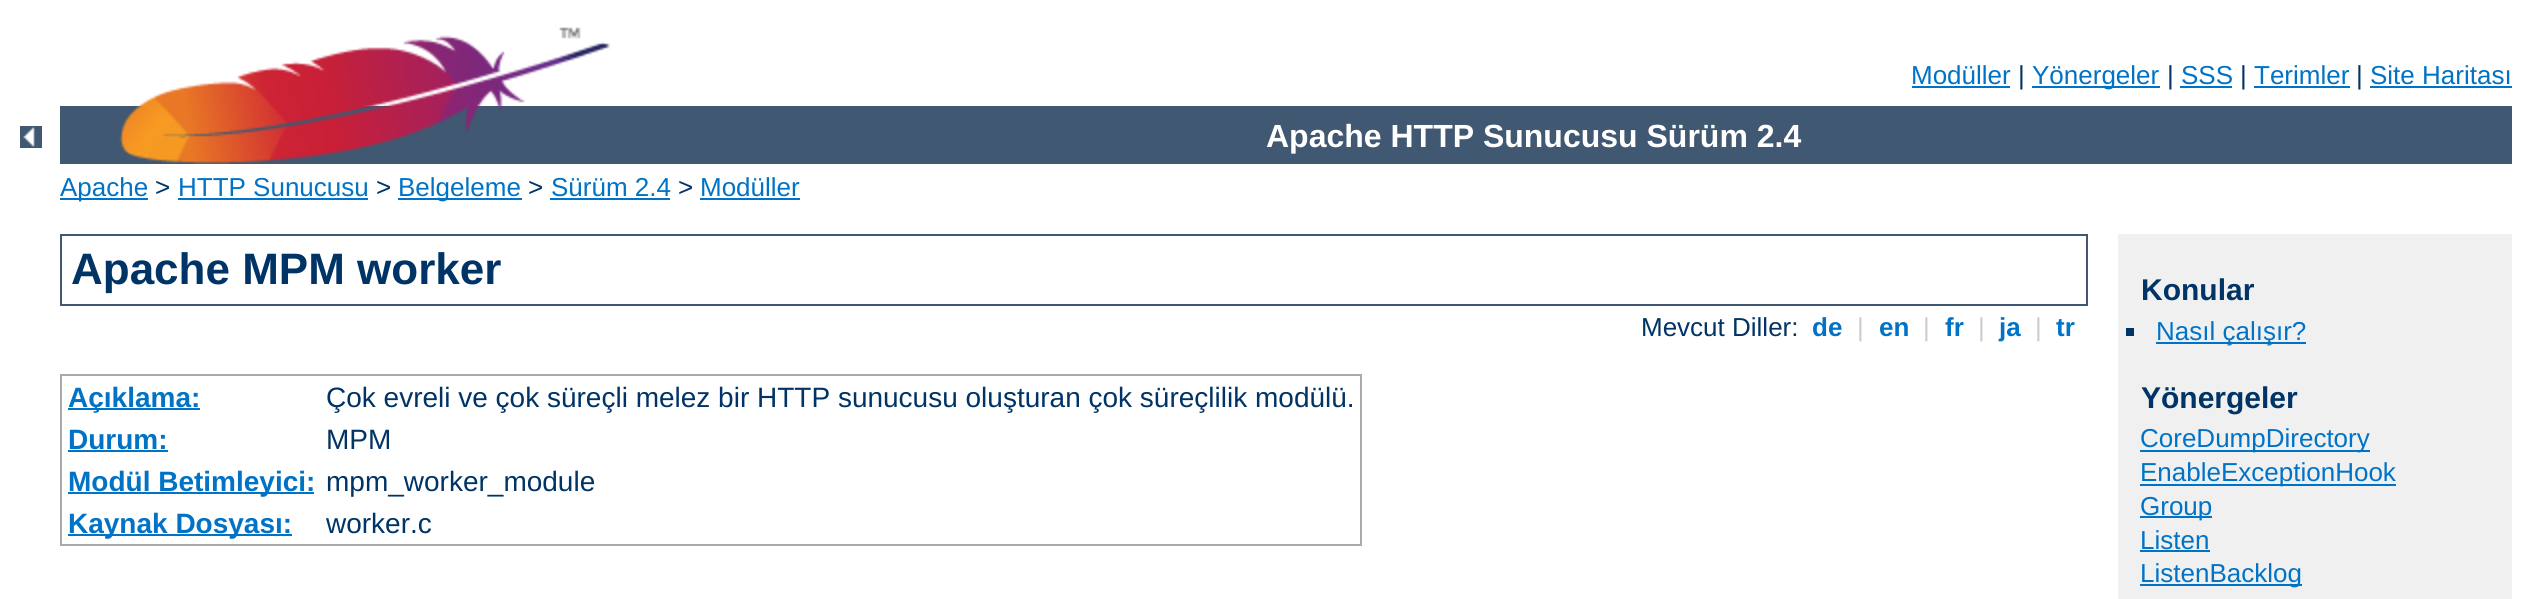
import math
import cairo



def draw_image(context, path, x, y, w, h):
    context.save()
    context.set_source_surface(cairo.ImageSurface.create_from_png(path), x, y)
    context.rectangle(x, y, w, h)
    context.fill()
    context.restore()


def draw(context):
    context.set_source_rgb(1, 1, 1)
    context.paint()
    draw_image(context, "images/1.png", 20, 126, 22, 22)
    context.set_source_rgb(64 / 255, 88 / 255, 113 / 255)
    context.rectangle(60, 106, 2452, 58)
    context.fill()
    draw_image(context, "images/2.png", 119, 27, 492, 137)
    context.set_source_rgb(0, 115 / 255, 199 / 255)
    context.rectangle(1912, 86, 98, 2)
    context.fill()
    context.rectangle(2032, 86, 128, 2)
    context.fill()
    context.rectangle(2180, 86, 52, 2)
    context.fill()
    context.rectangle(2254, 86, 96, 2)
    context.fill()
    context.rectangle(2370, 86, 142, 2)
    context.fill()
    context.rectangle(60, 198, 88, 2)
    context.fill()
    context.rectangle(178, 198, 190, 2)
    context.fill()
    context.rectangle(398, 198, 124, 2)
    context.fill()
    context.rectangle(550, 198, 120, 2)
    context.fill()
    context.rectangle(700, 198, 100, 2)
    context.fill()
    context.rectangle(61, 235, 2026, 70)
    context.set_source_rgb(64 / 255, 88 / 255, 113 / 255)
    context.stroke()
    context.set_source_rgb(170 / 255, 170 / 255, 170 / 255)
    context.rectangle(60, 374, 1302, 2)
    context.fill()
    context.rectangle(1360, 374, 2, 172)
    context.fill()
    context.rectangle(60, 544, 1302, 2)
    context.fill()
    context.rectangle(60, 374, 2, 172)
    context.fill()
    context.set_source_rgb(0, 115 / 255, 199 / 255)
    context.rectangle(68, 408, 132, 2)
    context.fill()
    context.rectangle(68, 450, 100, 2)
    context.fill()
    context.rectangle(68, 492, 246, 2)
    context.fill()
    context.rectangle(68, 534, 224, 2)
    context.fill()
    context.set_source_rgb(240 / 255, 240 / 255, 240 / 255)
    context.rectangle(2118, 234, 394, 365)
    context.fill()
    context.set_source_rgb(0, 51 / 255, 102 / 255)
    context.rectangle(2126, 328, 8, 8)
    context.fill()
    context.set_source_rgb(0, 115 / 255, 199 / 255)
    context.rectangle(2156, 342, 150, 2)
    context.fill()
    context.rectangle(2140, 450, 230, 2)
    context.fill()
    context.rectangle(2140, 484, 256, 2)
    context.fill()
    context.rectangle(2140, 516, 72, 2)
    context.fill()
    context.rectangle(2140, 550, 70, 2)
    context.fill()
    context.rectangle(2140, 584, 162, 2)
    context.fill()
    context.select_font_face("Liberation Sans")
    context.set_font_size(26)
    context.move_to(1911, 84)
    context.show_text("Modüller")
    context.set_source_rgb(0, 51 / 255, 102 / 255)
    context.move_to(2018, 84)
    context.show_text("|")
    context.set_source_rgb(0, 115 / 255, 199 / 255)
    context.move_to(2032, 84)
    context.show_text("Yönergeler")
    context.set_source_rgb(0, 51 / 255, 102 / 255)
    context.move_to(2167, 84)
    context.show_text("|")
    context.set_source_rgb(0, 115 / 255, 199 / 255)
    context.move_to(2181, 84)
    context.show_text("SSS")
    context.set_source_rgb(0, 51 / 255, 102 / 255)
    context.move_to(2240, 84)
    context.show_text("|")
    context.set_source_rgb(0, 115 / 255, 199 / 255)
    context.move_to(2254, 84)
    context.show_text("Terimler")
    context.set_source_rgb(0, 51 / 255, 102 / 255)
    context.move_to(2356, 84)
    context.show_text("|")
    context.set_source_rgb(0, 115 / 255, 199 / 255)
    context.move_to(2370, 84)
    context.show_text("Site Haritası")
    context.select_font_face("Liberation Sans", cairo.FontSlant.NORMAL, cairo.FontWeight.BOLD)
    context.set_font_size(32)
    context.set_source_rgb(1, 1, 1)
    context.move_to(1266, 147)
    context.show_text("Apache HTTP Sunucusu Sürüm 2.4")
    context.select_font_face("Liberation Sans")
    context.set_font_size(26)
    context.set_source_rgb(0, 115 / 255, 199 / 255)
    context.move_to(60, 196)
    context.show_text("Apache")
    context.set_source_rgb(0, 51 / 255, 102 / 255)
    context.move_to(155, 196)
    context.show_text(">")
    context.set_source_rgb(0, 115 / 255, 199 / 255)
    context.move_to(178, 196)
    context.show_text("HTTP Sunucusu")
    context.set_source_rgb(0, 51 / 255, 102 / 255)
    context.move_to(376, 196)
    context.show_text(">")
    context.set_source_rgb(0, 115 / 255, 199 / 255)
    context.move_to(398, 196)
    context.show_text("Belgeleme")
    context.set_source_rgb(0, 51 / 255, 102 / 255)
    context.move_to(528, 196)
    context.show_text(">")
    context.set_source_rgb(0, 115 / 255, 199 / 255)
    context.move_to(551, 196)
    context.show_text("Sürüm 2.4")
    context.set_source_rgb(0, 51 / 255, 102 / 255)
    context.move_to(678, 196)
    context.show_text(">")
    context.set_source_rgb(0, 115 / 255, 199 / 255)
    context.move_to(700, 196)
    context.show_text("Modüller")
    context.select_font_face("Liberation Sans", cairo.FontSlant.NORMAL, cairo.FontWeight.BOLD)
    context.set_font_size(44)
    context.set_source_rgb(0, 51 / 255, 102 / 255)
    context.move_to(71, 284)
    context.show_text("Apache MPM worker")
    context.select_font_face("Liberation Sans")
    context.set_font_size(26)
    context.move_to(1641, 336)
    context.show_text("Mevcut Diller:")
    context.select_font_face("Liberation Sans", cairo.FontSlant.NORMAL, cairo.FontWeight.BOLD)
    context.set_source_rgb(0, 115 / 255, 199 / 255)
    context.move_to(1812, 336)
    context.show_text("de")
    context.select_font_face("Liberation Sans")
    context.set_source_rgb(204 / 255, 204 / 255, 204 / 255)
    context.move_to(1857, 336)
    context.show_text("|")
    context.select_font_face("Liberation Sans", cairo.FontSlant.NORMAL, cairo.FontWeight.BOLD)
    context.set_source_rgb(0, 115 / 255, 199 / 255)
    context.move_to(1879, 336)
    context.show_text("en")
    context.select_font_face("Liberation Sans")
    context.set_source_rgb(204 / 255, 204 / 255, 204 / 255)
    context.move_to(1923, 336)
    context.show_text("|")
    context.select_font_face("Liberation Sans", cairo.FontSlant.NORMAL, cairo.FontWeight.BOLD)
    context.set_source_rgb(0, 115 / 255, 199 / 255)
    context.move_to(1945, 336)
    context.show_text("fr")
    context.select_font_face("Liberation Sans")
    context.set_source_rgb(204 / 255, 204 / 255, 204 / 255)
    context.move_to(1978, 336)
    context.show_text("|")
    context.select_font_face("Liberation Sans", cairo.FontSlant.NORMAL, cairo.FontWeight.BOLD)
    context.set_source_rgb(0, 115 / 255, 199 / 255)
    context.move_to(1999, 336)
    context.show_text("ja")
    context.select_font_face("Liberation Sans")
    context.set_source_rgb(204 / 255, 204 / 255, 204 / 255)
    context.move_to(2035, 336)
    context.show_text("|")
    context.select_font_face("Liberation Sans", cairo.FontSlant.NORMAL, cairo.FontWeight.BOLD)
    context.set_source_rgb(0, 115 / 255, 199 / 255)
    context.move_to(2056, 336)
    context.show_text("tr")
    context.set_font_size(28)
    context.move_to(68, 407)
    context.show_text("Açıklama:")
    context.select_font_face("Liberation Sans")
    context.set_source_rgb(0, 51 / 255, 102 / 255)
    context.move_to(326, 407)
    context.show_text("Çok evreli ve çok süreçli melez bir HTTP sunucusu oluşturan çok süreçlilik modülü.")
    context.select_font_face("Liberation Sans", cairo.FontSlant.NORMAL, cairo.FontWeight.BOLD)
    context.set_source_rgb(0, 115 / 255, 199 / 255)
    context.move_to(68, 449)
    context.show_text("Durum:")
    context.select_font_face("Liberation Sans")
    context.set_source_rgb(0, 51 / 255, 102 / 255)
    context.move_to(326, 449)
    context.show_text("MPM")
    context.select_font_face("Liberation Sans", cairo.FontSlant.NORMAL, cairo.FontWeight.BOLD)
    context.set_source_rgb(0, 115 / 255, 199 / 255)
    context.move_to(68, 491)
    context.show_text("Modül Betimleyici:")
    context.select_font_face("Liberation Sans")
    context.set_source_rgb(0, 51 / 255, 102 / 255)
    context.move_to(326, 491)
    context.show_text("mpm_worker_module")
    context.select_font_face("Liberation Sans", cairo.FontSlant.NORMAL, cairo.FontWeight.BOLD)
    context.set_source_rgb(0, 115 / 255, 199 / 255)
    context.move_to(68, 533)
    context.show_text("Kaynak Dosyası:")
    context.select_font_face("Liberation Sans")
    context.set_source_rgb(0, 51 / 255, 102 / 255)
    context.move_to(326, 533)
    context.show_text("worker.c")
    context.select_font_face("Liberation Sans", cairo.FontSlant.NORMAL, cairo.FontWeight.BOLD)
    context.set_font_size(30)
    context.move_to(2141, 300)
    context.show_text("Konular")
    context.select_font_face("Liberation Sans")
    context.set_font_size(26)
    context.set_source_rgb(0, 115 / 255, 199 / 255)
    context.move_to(2156, 340)
    context.show_text("Nasıl çalışır?")
    context.select_font_face("Liberation Sans", cairo.FontSlant.NORMAL, cairo.FontWeight.BOLD)
    context.set_font_size(30)
    context.set_source_rgb(0, 51 / 255, 102 / 255)
    context.move_to(2141, 408)
    context.show_text("Yönergeler")
    context.select_font_face("Liberation Sans")
    context.set_font_size(26)
    context.set_source_rgb(0, 115 / 255, 199 / 255)
    context.move_to(2140, 447)
    context.show_text("CoreDumpDirectory")
    context.move_to(2140, 481)
    context.show_text("EnableExceptionHook")
    context.move_to(2140, 515)
    context.show_text("Group")
    context.move_to(2140, 549)
    context.show_text("Listen")
    context.move_to(2140, 582)
    context.show_text("ListenBacklog")


surface = cairo.ImageSurface(cairo.Format.RGB24, 2540, 599)
context = cairo.Context(surface)
options = cairo.FontOptions()
options.set_hint_metrics(cairo.HintMetrics.OFF)
options.set_hint_style(cairo.HintStyle.NONE)
context.set_font_options(options)
context.set_miter_limit(4)
draw(context)
surface.write_to_png("out.png")
